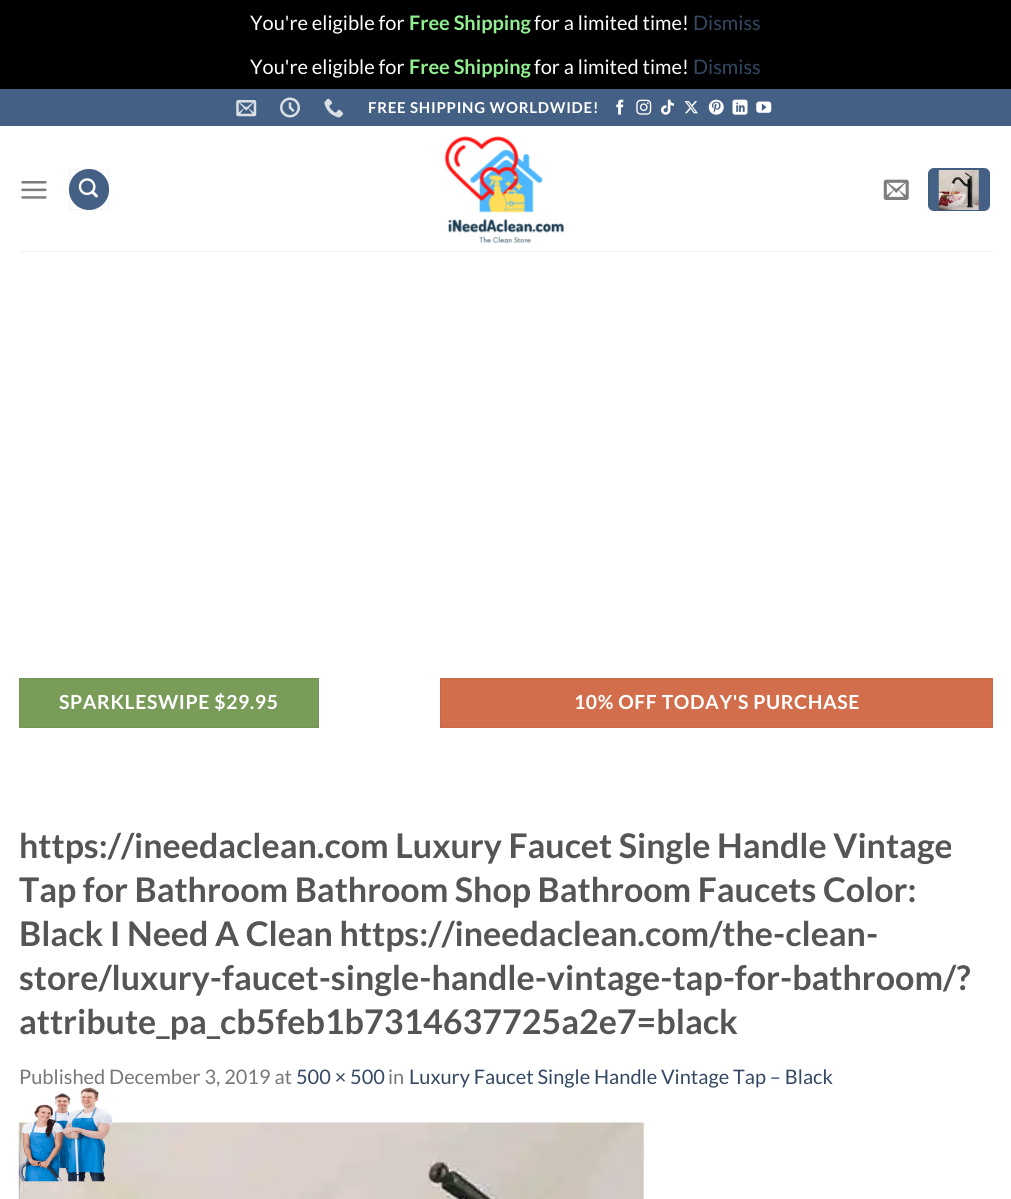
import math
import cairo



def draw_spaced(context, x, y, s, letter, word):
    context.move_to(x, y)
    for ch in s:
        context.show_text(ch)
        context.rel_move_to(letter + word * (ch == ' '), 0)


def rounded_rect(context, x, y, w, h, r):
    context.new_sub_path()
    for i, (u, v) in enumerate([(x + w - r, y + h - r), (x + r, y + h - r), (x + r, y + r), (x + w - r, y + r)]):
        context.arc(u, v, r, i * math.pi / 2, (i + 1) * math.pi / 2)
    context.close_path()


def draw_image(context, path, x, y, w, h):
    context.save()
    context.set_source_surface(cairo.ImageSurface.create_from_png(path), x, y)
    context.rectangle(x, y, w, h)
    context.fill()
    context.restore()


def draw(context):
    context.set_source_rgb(0, 0, 0)
    context.paint()
    context.set_source_rgb(1, 1, 1)
    context.rectangle(0, 126, 1011, 1073)
    context.fill()
    context.set_source_rgb(68 / 255, 96 / 255, 132 / 255)
    context.rectangle(0, 89, 1011, 37)
    context.fill()
    draw_image(context, "images/1.png", 236, 100, 21, 17)
    draw_image(context, "images/2.png", 280, 97, 20, 21)
    draw_image(context, "images/3.png", 324, 98, 20, 20)
    draw_image(context, "images/4.png", 616, 99, 8, 16)
    draw_image(context, "images/5.png", 636, 99, 16, 16)
    draw_image(context, "images/6.png", 661, 99, 13, 16)
    draw_image(context, "images/7.png", 684, 101, 14, 13)
    draw_image(context, "images/8.png", 708, 99, 16, 16)
    draw_image(context, "images/9.png", 732, 99, 16, 16)
    draw_image(context, "images/10.png", 756, 101, 16, 12)
    draw_image(context, "images/11.png", 21, 181, 26, 18)
    rounded_rect(context, 69, 169, 40, 41, 20)
    context.fill()
    context.rectangle(69.5, 169.5, 39, 40)
    context.set_source_rgba(0, 0, 0, 0.05)
    context.set_line_width(1)
    context.stroke()
    draw_image(context, "images/12.png", 78, 178, 20, 20)
    draw_image(context, "images/13.png", 444, 136, 120, 108)
    draw_image(context, "images/14.png", 883, 179, 26, 21)
    context.set_source_rgb(68 / 255, 96 / 255, 132 / 255)
    rounded_rect(context, 928, 168, 62, 43, 6)
    context.fill()
    context.rectangle(928.5, 168.5, 61, 42)
    context.set_source_rgba(0, 0, 0, 0.05)
    context.stroke()
    draw_image(context, "images/15.png", 938, 170, 41, 40)
    context.set_source_rgb(241 / 255, 241 / 255, 241 / 255)
    context.rectangle(19, 251, 974, 1)
    context.fill()
    context.set_source_rgb(122 / 255, 156 / 255, 89 / 255)
    context.rectangle(19.5, 678.5, 299, 49)
    context.fill_preserve()
    context.set_source_rgb(116 / 255, 148 / 255, 85 / 255)
    context.stroke()
    context.set_source_rgb(210 / 255, 110 / 255, 75 / 255)
    context.rectangle(440.5, 678.5, 552, 49)
    context.fill_preserve()
    context.set_source_rgb(200 / 255, 105 / 255, 71 / 255)
    context.stroke()
    draw_image(context, "images/16.png", 18, 1122, 626, 77)
    draw_image(context, "images/17.png", 18, 1087, 95, 95)
    context.select_font_face("Lato")
    context.set_font_size(20)
    context.set_source_rgb(1, 1, 1)
    context.move_to(250, 30)
    context.show_text("You're eligible for")
    context.select_font_face("Lato", cairo.FontSlant.NORMAL, cairo.FontWeight.BOLD)
    context.set_source_rgb(144 / 255, 238 / 255, 144 / 255)
    context.move_to(409, 30)
    context.show_text("Free Shipping")
    context.select_font_face("Lato")
    context.set_source_rgb(1, 1, 1)
    context.move_to(534, 30)
    context.show_text("for a limited time!")
    context.set_source_rgb(51 / 255, 72 / 255, 98 / 255)
    context.move_to(693, 30)
    context.show_text("Dismiss")
    context.set_source_rgb(1, 1, 1)
    context.move_to(250, 74)
    context.show_text("You're eligible for")
    context.select_font_face("Lato", cairo.FontSlant.NORMAL, cairo.FontWeight.BOLD)
    context.set_source_rgb(144 / 255, 238 / 255, 144 / 255)
    context.move_to(409, 74)
    context.show_text("Free Shipping")
    context.select_font_face("Lato")
    context.set_source_rgb(1, 1, 1)
    context.move_to(534, 74)
    context.show_text("for a limited time!")
    context.set_source_rgb(51 / 255, 72 / 255, 98 / 255)
    context.move_to(693, 74)
    context.show_text("Dismiss")
    context.select_font_face("Lato", cairo.FontSlant.NORMAL, cairo.FontWeight.BOLD)
    context.set_font_size(15)
    context.set_source_rgb(1, 1, 1)
    draw_spaced(context, 368, 113, "FREE SHIPPING WORLDWIDE!", 0.75, 0)
    context.set_font_size(19.4)
    draw_spaced(context, 59, 709, "SPARKLESWIPE $29.95", 0.6, 0)
    draw_spaced(context, 574, 709, "10% OFF TODAY'S PURCHASE", 0.6, 0)
    context.set_font_size(34)
    context.set_source_rgb(85 / 255, 85 / 255, 85 / 255)
    context.move_to(19, 858)
    context.show_text("https://ineedaclean.com Luxury Faucet Single Handle Vintage")
    context.move_to(19, 902)
    context.show_text("Tap for Bathroom Bathroom Shop Bathroom Faucets Color:")
    context.move_to(19, 946)
    context.show_text("Black I Need A Clean https://ineedaclean.com/the-clean-")
    context.move_to(19, 990)
    context.show_text("store/luxury-faucet-single-handle-vintage-tap-for-bathroom/?")
    context.move_to(19, 1034)
    context.show_text("attribute_pa_cb5feb1b7314637725a2e7=black")
    context.select_font_face("Lato")
    context.set_font_size(20)
    context.set_source_rgb(119 / 255, 119 / 255, 119 / 255)
    context.move_to(19, 1084)
    context.show_text("Published December 3, 2019 at")
    context.set_source_rgb(51 / 255, 72 / 255, 98 / 255)
    context.move_to(296, 1084)
    context.show_text("500 × 500")
    context.set_source_rgb(119 / 255, 119 / 255, 119 / 255)
    context.move_to(388, 1084)
    context.show_text("in")
    context.set_source_rgb(51 / 255, 72 / 255, 98 / 255)
    context.move_to(409, 1084)
    context.show_text("Luxury Faucet Single Handle Vintage Tap – Black")


surface = cairo.ImageSurface(cairo.Format.RGB24, 1011, 1199)
context = cairo.Context(surface)
options = cairo.FontOptions()
options.set_hint_metrics(cairo.HintMetrics.OFF)
options.set_hint_style(cairo.HintStyle.NONE)
context.set_font_options(options)
context.set_miter_limit(4)
draw(context)
surface.write_to_png("out.png")
